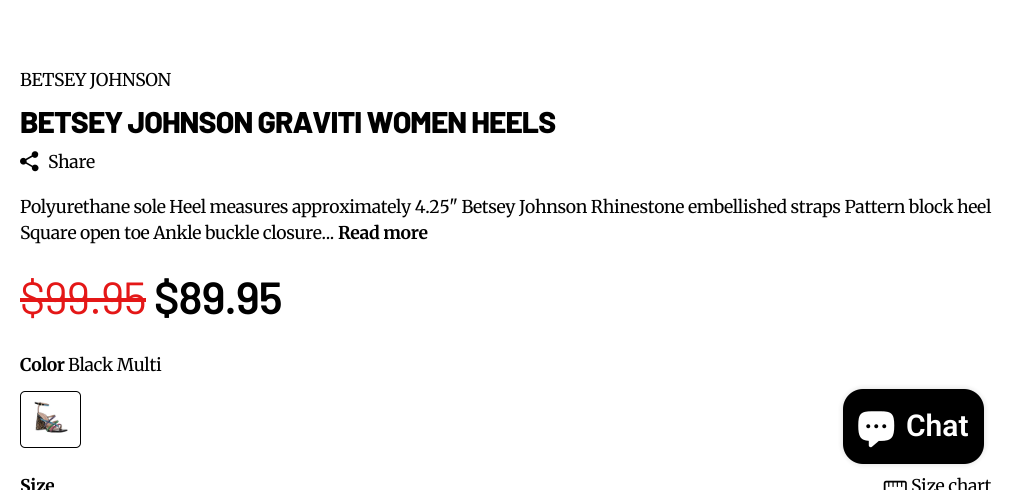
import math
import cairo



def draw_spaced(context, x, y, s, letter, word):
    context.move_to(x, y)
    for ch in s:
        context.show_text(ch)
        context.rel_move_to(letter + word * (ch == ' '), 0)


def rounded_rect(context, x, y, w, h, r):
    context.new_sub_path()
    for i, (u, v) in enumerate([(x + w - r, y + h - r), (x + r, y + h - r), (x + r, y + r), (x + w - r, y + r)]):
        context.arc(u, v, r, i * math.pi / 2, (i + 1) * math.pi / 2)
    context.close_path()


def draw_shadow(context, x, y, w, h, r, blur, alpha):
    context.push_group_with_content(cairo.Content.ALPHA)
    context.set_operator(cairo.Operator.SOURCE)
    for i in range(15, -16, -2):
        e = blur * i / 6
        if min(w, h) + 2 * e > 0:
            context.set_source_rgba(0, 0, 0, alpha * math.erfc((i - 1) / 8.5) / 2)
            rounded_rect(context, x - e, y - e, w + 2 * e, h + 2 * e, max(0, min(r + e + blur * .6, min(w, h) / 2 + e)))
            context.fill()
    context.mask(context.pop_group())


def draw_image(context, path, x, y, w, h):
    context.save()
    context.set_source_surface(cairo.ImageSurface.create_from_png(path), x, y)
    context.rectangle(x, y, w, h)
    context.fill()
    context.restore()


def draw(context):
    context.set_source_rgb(1, 1, 1)
    context.paint()
    draw_image(context, "images/1.png", 20, 151, 19, 21)
    context.set_source_rgb(228 / 255, 23 / 255, 23 / 255)
    context.rectangle(20, 298, 126, 4)
    context.fill()
    rounded_rect(context, 20.5, 391.5, 60, 56, 4.5)
    context.set_source_rgb(0, 0, 0)
    context.set_line_width(1)
    context.stroke()
    draw_image(context, "images/2.png", 34, 401, 34, 32)
    draw_image(context, "images/3.png", 883, 480, 24, 10)
    context.set_source_rgb(0, 0, 0)
    draw_shadow(context, 843, 389, 141, 75, 20, 3, 0.15)
    context.set_source_rgb(0, 0, 0)
    rounded_rect(context, 843, 389, 141, 75, 20)
    context.fill()
    draw_image(context, "images/4.png", 858, 411, 37, 37)
    context.select_font_face("Merriweather")
    context.set_font_size(17.55)
    draw_spaced(context, 20, 86, "BETSEY JOHNSON", -0.35, 0)
    context.select_font_face("Barlow ExtraBold")
    context.set_font_size(30)
    draw_spaced(context, 20, 133, "BETSEY JOHNSON GRAVITI WOMEN HEELS", -0.9, 0)
    context.select_font_face("Merriweather")
    context.set_font_size(17.55)
    draw_spaced(context, 48, 168, "Share", -0.35, 0)
    draw_spaced(context, 20, 213, "Polyurethane sole Heel measures approximately 4.25\" Betsey Johnson Rhinestone embellished straps Pattern block heel", -0.35, 0)
    draw_spaced(context, 20, 239, "Square open toe Ankle buckle closure...", -0.35, 0)
    context.select_font_face("Merriweather", cairo.FontSlant.NORMAL, cairo.FontWeight.BOLD)
    draw_spaced(context, 338, 239, "Read more", -0.35, 0)
    context.select_font_face("Barlow")
    context.set_font_size(45)
    context.set_source_rgb(228 / 255, 23 / 255, 23 / 255)
    draw_spaced(context, 20, 314, "$99.95", -0.9, 0)
    context.select_font_face("Barlow SemiBold")
    context.set_source_rgb(0, 0, 0)
    draw_spaced(context, 154, 314, "$89.95", -0.9, 0)
    context.select_font_face("Merriweather", cairo.FontSlant.NORMAL, cairo.FontWeight.BOLD)
    context.set_font_size(17.55)
    draw_spaced(context, 20, 371, "Color", -0.35, 0)
    context.select_font_face("Merriweather")
    draw_spaced(context, 68, 371, "Black Multi", -0.35, 0)
    context.select_font_face("Merriweather", cairo.FontSlant.NORMAL, cairo.FontWeight.BOLD)
    draw_spaced(context, 20, 492, "Size", -0.35, 0)
    context.select_font_face("Merriweather")
    draw_spaced(context, 911, 492, "Size chart", -0.35, 0)
    context.select_font_face("Roboto SemiBold")
    context.set_font_size(30)
    context.set_source_rgb(1, 1, 1)
    context.move_to(906, 436)
    context.show_text("Chat")


surface = cairo.ImageSurface(cairo.Format.RGB24, 1011, 490)
context = cairo.Context(surface)
options = cairo.FontOptions()
options.set_hint_metrics(cairo.HintMetrics.OFF)
options.set_hint_style(cairo.HintStyle.NONE)
context.set_font_options(options)
context.set_miter_limit(4)
draw(context)
surface.write_to_png("out.png")
